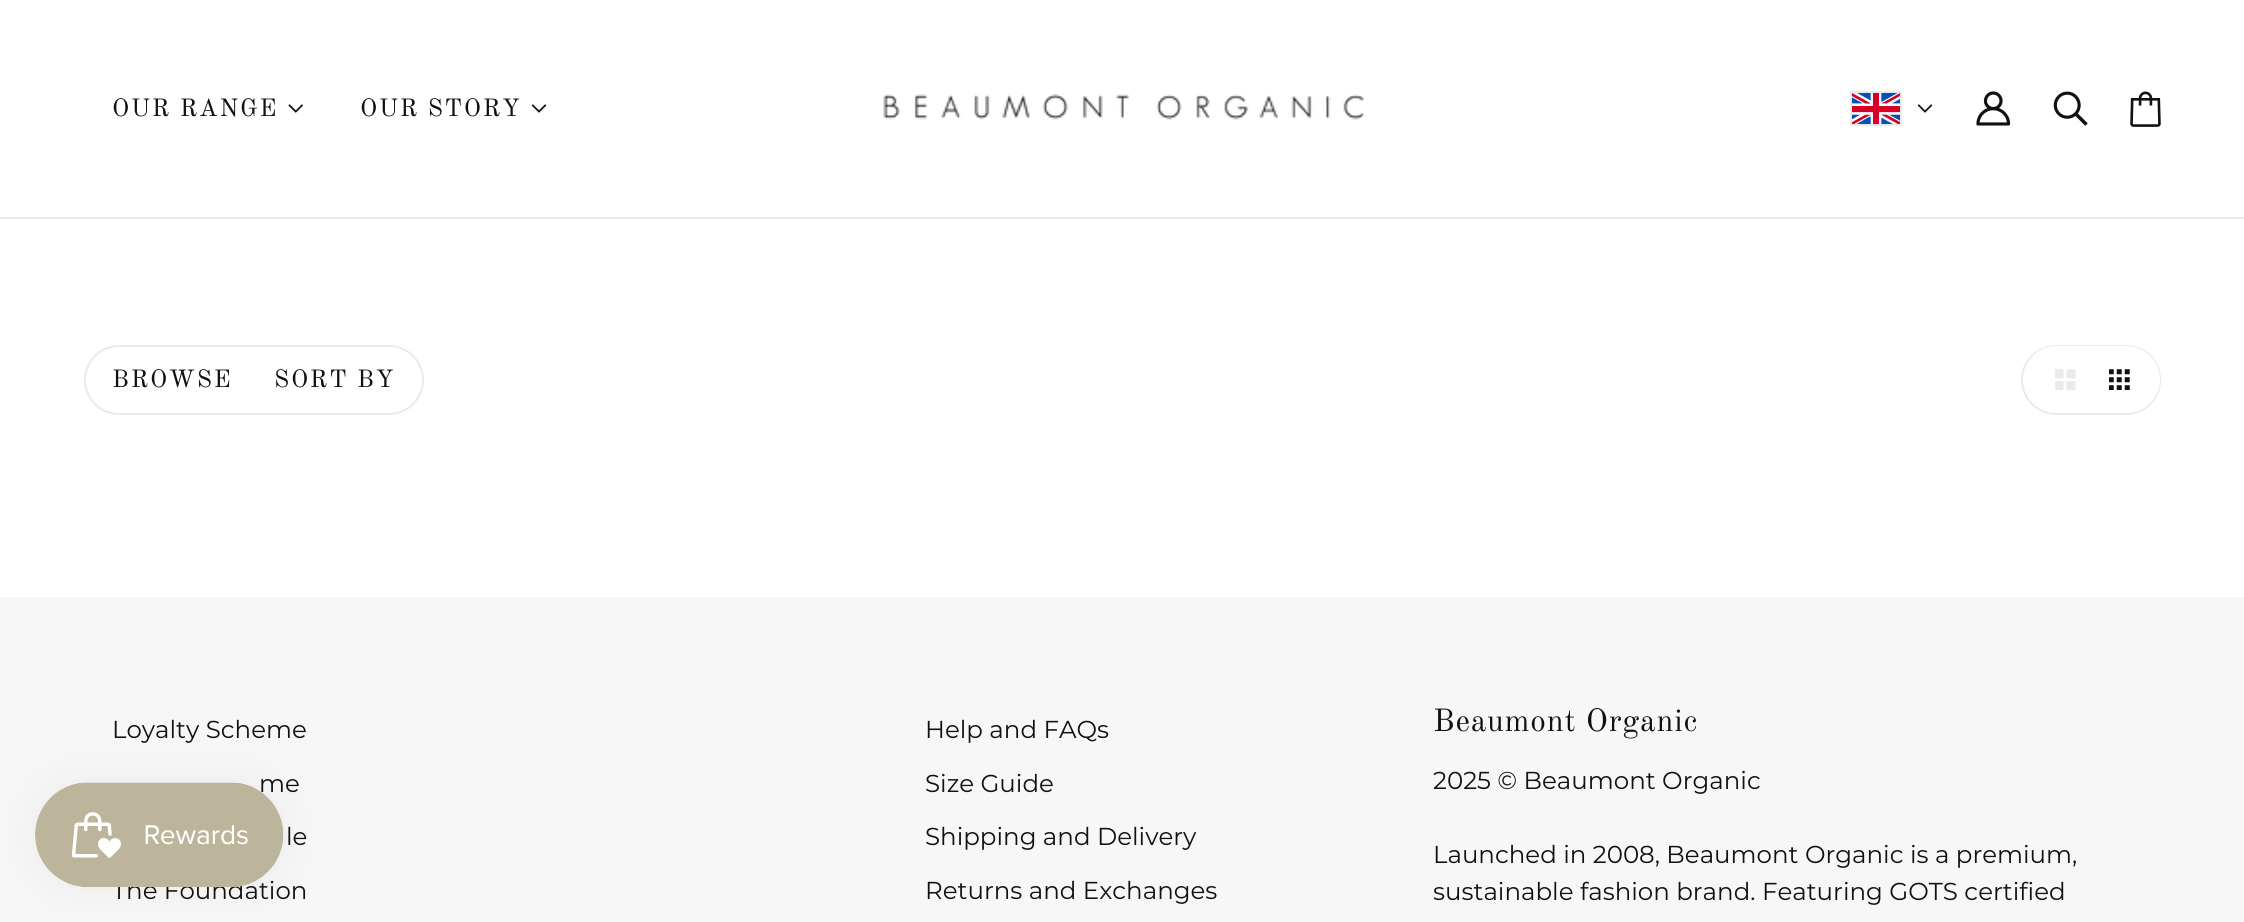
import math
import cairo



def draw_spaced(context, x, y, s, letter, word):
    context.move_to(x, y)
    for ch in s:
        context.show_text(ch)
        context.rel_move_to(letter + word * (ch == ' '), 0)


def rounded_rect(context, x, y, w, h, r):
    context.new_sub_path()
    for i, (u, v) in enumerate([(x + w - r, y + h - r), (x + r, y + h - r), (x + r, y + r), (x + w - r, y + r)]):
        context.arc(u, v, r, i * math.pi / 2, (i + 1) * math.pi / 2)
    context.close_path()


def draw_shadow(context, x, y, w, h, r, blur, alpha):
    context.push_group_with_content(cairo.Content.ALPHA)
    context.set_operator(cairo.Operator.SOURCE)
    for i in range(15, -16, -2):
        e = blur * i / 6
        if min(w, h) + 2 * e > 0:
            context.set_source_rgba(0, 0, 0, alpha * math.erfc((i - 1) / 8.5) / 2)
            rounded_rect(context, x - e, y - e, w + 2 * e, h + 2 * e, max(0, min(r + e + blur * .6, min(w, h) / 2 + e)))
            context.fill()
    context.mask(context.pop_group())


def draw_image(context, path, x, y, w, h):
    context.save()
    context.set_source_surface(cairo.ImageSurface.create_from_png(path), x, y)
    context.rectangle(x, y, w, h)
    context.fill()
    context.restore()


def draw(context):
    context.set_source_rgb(1, 1, 1)
    context.paint()
    context.set_source_rgb(234 / 255, 234 / 255, 234 / 255)
    context.rectangle(0, 217, 2244, 2)
    context.fill()
    draw_image(context, "images/1.png", 288, 104, 16, 9)
    draw_image(context, "images/2.png", 531, 104, 16, 9)
    draw_image(context, "images/3.png", 883, 94, 481, 26)
    draw_image(context, "images/4.png", 1852, 93, 48, 31)
    context.rectangle(1851, 92, 50, 33)
    context.stroke()
    draw_image(context, "images/2.png", 1917, 104, 16, 9)
    draw_image(context, "images/5.png", 1976, 91, 35, 35)
    draw_image(context, "images/6.png", 2053, 91, 35, 35)
    draw_image(context, "images/7.png", 2130, 91, 31, 36)
    rounded_rect(context, 85, 346, 338, 68, 34)
    context.stroke()
    context.set_fill_rule(cairo.FillRule.EVEN_ODD)
    context.new_path()
    context.move_to(2056, 345)
    context.line_to(2091, 345)
    context.line_to(2091, 415)
    context.line_to(2056, 415)
    context.curve_to(2037, 415, 2021, 399, 2021, 380)
    context.curve_to(2021, 360, 2037, 345, 2056, 345)
    context.close_path()
    context.move_to(2056, 346)
    context.line_to(2091, 346)
    context.line_to(2091, 413)
    context.line_to(2056, 413)
    context.curve_to(2038, 413, 2023, 398, 2023, 380)
    context.curve_to(2023, 361, 2038, 346, 2056, 346)
    context.close_path()
    context.fill()
    draw_image(context, "images/8.png", 2055, 369, 21, 21)
    context.new_path()
    context.move_to(2091, 345)
    context.line_to(2126, 345)
    context.curve_to(2146, 345, 2161, 360, 2161, 380)
    context.curve_to(2161, 399, 2146, 415, 2126, 415)
    context.line_to(2091, 415)
    context.close_path()
    context.move_to(2091, 346)
    context.line_to(2126, 346)
    context.curve_to(2145, 346, 2160, 361, 2160, 380)
    context.curve_to(2160, 398, 2145, 413, 2126, 413)
    context.line_to(2091, 413)
    context.close_path()
    context.fill()
    draw_image(context, "images/9.png", 2109, 369, 21, 21)
    context.set_source_rgb(247 / 255, 247 / 255, 247 / 255)
    context.rectangle(0, 597, 2244, 325)
    context.fill()
    context.set_source_rgb(0, 0, 0)
    draw_shadow(context, 35, 782, 249, 105, 52.5, 22, 0.05)
    context.select_font_face("Old Standard TT")
    context.set_font_size(24.5)
    context.set_source_rgb(17 / 255, 17 / 255, 17 / 255)
    draw_spaced(context, 112, 116, "OUR RANGE", 1.75, 0)
    draw_spaced(context, 360, 116, "OUR STORY", 1.75, 0)
    draw_spaced(context, 112, 387, "BROWSE", 1.75, 0)
    draw_spaced(context, 274, 387, "SORT BY", 1.75, 0)
    context.select_font_face("Montserrat")
    context.move_to(112, 738)
    context.show_text("Loyalty Scheme")
    context.move_to(259, 792)
    context.show_text("me")
    context.move_to(286, 845)
    context.show_text("le")
    context.move_to(112, 899)
    context.show_text("The Foundation")
    context.move_to(925, 738)
    context.show_text("Help and FAQs")
    context.move_to(925, 792)
    context.show_text("Size Guide")
    context.move_to(925, 845)
    context.show_text("Shipping and Delivery")
    context.move_to(925, 899)
    context.show_text("Returns and Exchanges")
    context.select_font_face("Old Standard TT")
    context.set_font_size(31.5)
    draw_spaced(context, 1433, 731, "Beaumont Organic", 0.75, 0)
    context.select_font_face("Montserrat")
    context.set_font_size(24.5)
    context.move_to(1433, 789)
    context.show_text("2025 © Beaumont Organic")
    context.move_to(1433, 863)
    context.show_text("Launched in 2008, Beaumont Organic is a premium,")
    context.move_to(1433, 900)
    context.show_text("sustainable fashion brand. Featuring GOTS certified")
    draw_image(context, "images/10.png", 35, 782, 249, 105)


surface = cairo.ImageSurface(cairo.Format.RGB24, 2244, 922)
context = cairo.Context(surface)
options = cairo.FontOptions()
options.set_hint_metrics(cairo.HintMetrics.OFF)
options.set_hint_style(cairo.HintStyle.NONE)
context.set_font_options(options)
context.set_miter_limit(4)
draw(context)
surface.write_to_png("out.png")
